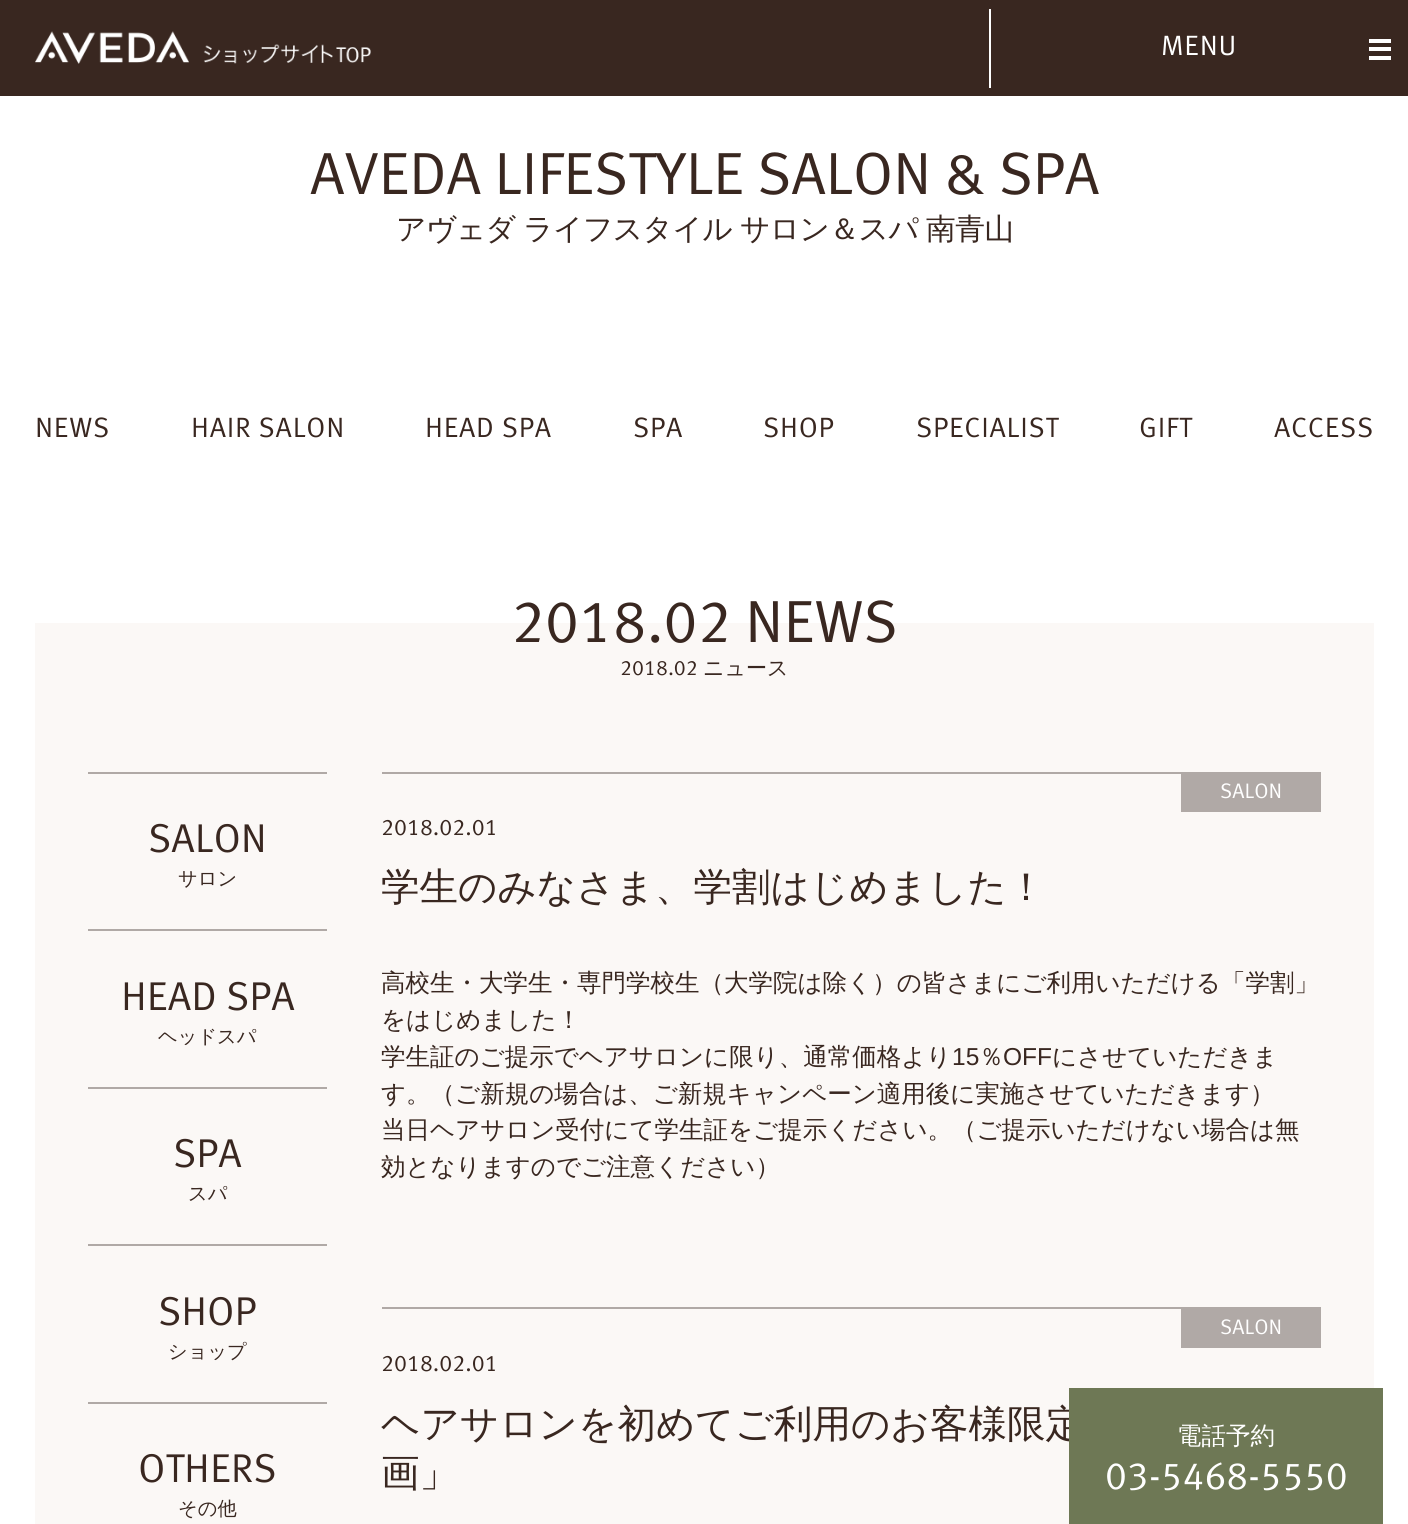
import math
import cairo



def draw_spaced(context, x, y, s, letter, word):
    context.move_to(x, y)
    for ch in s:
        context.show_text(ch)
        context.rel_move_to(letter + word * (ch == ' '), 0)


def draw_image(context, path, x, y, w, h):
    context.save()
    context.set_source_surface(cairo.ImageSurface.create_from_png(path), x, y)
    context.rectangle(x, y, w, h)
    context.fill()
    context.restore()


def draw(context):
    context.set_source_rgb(1, 1, 1)
    context.paint()
    context.set_source_rgb(57 / 255, 39 / 255, 32 / 255)
    context.rectangle(0, 0, 1408, 96)
    context.fill()
    draw_image(context, "images/1.png", 35, 31, 336, 33)
    context.set_source_rgb(1, 1, 1)
    context.rectangle(989, 9, 2, 79)
    context.fill()
    context.rectangle(1369, 39, 22, 4)
    context.fill()
    context.rectangle(1369, 47, 22, 4)
    context.fill()
    context.rectangle(1369, 56, 22, 4)
    context.fill()
    context.set_source_rgb(251 / 255, 248 / 255, 246 / 255)
    context.rectangle(35, 623, 1339, 901)
    context.fill()
    context.set_source_rgb(176 / 255, 169 / 255, 166 / 255)
    context.rectangle(88, 772, 239, 2)
    context.fill()
    context.rectangle(88, 929, 239, 2)
    context.fill()
    context.rectangle(88, 1087, 239, 2)
    context.fill()
    context.rectangle(88, 1244, 239, 2)
    context.fill()
    context.rectangle(88, 1402, 239, 2)
    context.fill()
    context.rectangle(382, 772, 939, 2)
    context.fill()
    context.rectangle(1181, 774, 140, 38)
    context.fill()
    context.rectangle(382, 1307, 939, 2)
    context.fill()
    context.rectangle(1181, 1309, 140, 39)
    context.fill()
    context.select_font_face("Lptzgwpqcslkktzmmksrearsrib")
    context.set_font_size(28)
    context.set_source_rgb(1, 1, 1)
    draw_spaced(context, 1161, 55, "MENU", 0.75, 0)
    context.set_font_size(59.5)
    context.set_source_rgb(57 / 255, 39 / 255, 32 / 255)
    draw_spaced(context, 310, 194, "AVEDA LIFESTYLE SALON & SPA", -0.3, 0)
    context.select_font_face("WenQuanYi Zen Hei Medium")
    context.set_font_size(29.75)
    draw_spaced(context, 396, 239, "アヴェダ ライフスタイル サロン＆スパ 南青山", -0.6, -0.5)
    context.select_font_face("Lptzgwpqcslkktzmmksrearsrib")
    context.set_font_size(28)
    draw_spaced(context, 35, 437, "NEWS", 0.75, 0)
    draw_spaced(context, 191, 437, "HAIR SALON", 0.75, 0)
    draw_spaced(context, 425, 437, "HEAD SPA", 0.75, 0)
    draw_spaced(context, 633, 437, "SPA", 0.75, 0)
    draw_spaced(context, 763, 437, "SHOP", 0.75, 0)
    draw_spaced(context, 916, 437, "SPECIALIST", 0.75, 0)
    draw_spaced(context, 1139, 437, "GIFT", 0.75, 0)
    draw_spaced(context, 1274, 437, "ACCESS", 0.75, 0)
    context.set_font_size(59.5)
    context.move_to(511, 642)
    context.show_text("2018.02 NEWS")
    context.set_font_size(21)
    context.move_to(620, 675)
    context.show_text("2018.02")
    context.select_font_face("WenQuanYi Zen Hei Medium")
    context.move_to(703, 675)
    context.show_text("ニュース")
    context.select_font_face("Lptzgwpqcslkktzmmksrearsrib")
    context.set_font_size(40.25)
    context.move_to(148, 852)
    context.show_text("SALON")
    context.select_font_face("WenQuanYi Zen Hei Medium")
    context.set_font_size(19.25)
    context.move_to(178, 885)
    context.show_text("サロン")
    context.select_font_face("Lptzgwpqcslkktzmmksrearsrib")
    context.set_font_size(40.25)
    context.move_to(121, 1010)
    context.show_text("HEAD SPA")
    context.select_font_face("WenQuanYi Zen Hei Medium")
    context.set_font_size(19.25)
    context.move_to(158, 1043)
    context.show_text("ヘッドスパ")
    context.select_font_face("Lptzgwpqcslkktzmmksrearsrib")
    context.set_font_size(40.25)
    context.move_to(173, 1167)
    context.show_text("SPA")
    context.select_font_face("WenQuanYi Zen Hei Medium")
    context.set_font_size(19.25)
    context.move_to(188, 1200)
    context.show_text("スパ")
    context.select_font_face("Lptzgwpqcslkktzmmksrearsrib")
    context.set_font_size(40.25)
    context.move_to(158, 1325)
    context.show_text("SHOP")
    context.select_font_face("WenQuanYi Zen Hei Medium")
    context.set_font_size(19.25)
    context.move_to(168, 1358)
    context.show_text("ショップ")
    context.select_font_face("Lptzgwpqcslkktzmmksrearsrib")
    context.set_font_size(40.25)
    context.move_to(138, 1482)
    context.show_text("OTHERS")
    context.select_font_face("WenQuanYi Zen Hei Medium")
    context.set_font_size(19.25)
    context.move_to(178, 1515)
    context.show_text("その他")
    context.select_font_face("Lptzgwpqcslkktzmmksrearsrib")
    context.set_font_size(21)
    context.set_source_rgb(1, 1, 1)
    context.move_to(1220, 798)
    context.show_text("SALON")
    context.set_font_size(22.75)
    context.set_source_rgb(57 / 255, 39 / 255, 32 / 255)
    context.move_to(381, 835)
    context.show_text("2018.02.01")
    context.select_font_face("WenQuanYi Zen Hei Medium")
    context.set_font_size(38.5)
    context.move_to(381, 900)
    context.show_text("学生のみなさま、学割はじめました！")
    context.set_font_size(24.5)
    context.move_to(381, 991)
    context.show_text("高校生・大学生・専門学校生（大学院は除く）の皆さまにご利用いただける「学割」")
    context.move_to(381, 1028)
    context.show_text("をはじめました！")
    context.move_to(381, 1065)
    context.show_text("学生証のご提示でヘアサロンに限り、通常価格より")
    context.select_font_face("Liberation Sans")
    context.move_to(952, 1065)
    context.show_text("15")
    context.select_font_face("WenQuanYi Zen Hei Medium")
    context.move_to(979, 1065)
    context.show_text("％")
    context.select_font_face("Liberation Sans")
    context.move_to(1003, 1065)
    context.show_text("OFF")
    context.select_font_face("WenQuanYi Zen Hei Medium")
    context.move_to(1052, 1065)
    context.show_text("にさせていただきま")
    context.move_to(381, 1102)
    context.show_text("す。（ご新規の場合は、ご新規キャンペーン適用後に実施させていただきます）")
    context.move_to(381, 1138)
    context.show_text("当日ヘアサロン受付にて学生証をご提示ください。（ご提示いただけない場合は無")
    context.move_to(381, 1175)
    context.show_text("効となりますのでご注意ください）")
    context.select_font_face("Lptzgwpqcslkktzmmksrearsrib")
    context.set_font_size(21)
    context.set_source_rgb(1, 1, 1)
    context.move_to(1220, 1334)
    context.show_text("SALON")
    context.set_font_size(22.75)
    context.set_source_rgb(57 / 255, 39 / 255, 32 / 255)
    context.move_to(381, 1371)
    context.show_text("2018.02.01")
    context.select_font_face("WenQuanYi Zen Hei Medium")
    context.set_font_size(38.5)
    draw_spaced(context, 381, 1437, "ヘアサロンを初めてご利用のお客様限定", 0, -1)
    context.move_to(381, 1486)
    context.show_text("画」")
    context.set_source_rgb(110 / 255, 120 / 255, 85 / 255)
    context.rectangle(1069, 1388, 314, 136)
    context.fill()
    context.set_font_size(24.5)
    context.set_source_rgb(1, 1, 1)
    context.move_to(1177, 1444)
    context.show_text("電話予約")
    context.select_font_face("Lptzgwpqcslkktzmmksrearsrib")
    context.set_font_size(38.5)
    context.move_to(1105, 1489)
    context.show_text("03-5468-5550")


surface = cairo.ImageSurface(cairo.Format.RGB24, 1408, 1524)
context = cairo.Context(surface)
options = cairo.FontOptions()
options.set_hint_metrics(cairo.HintMetrics.OFF)
options.set_hint_style(cairo.HintStyle.NONE)
context.set_font_options(options)
context.set_miter_limit(4)
draw(context)
surface.write_to_png("out.png")
